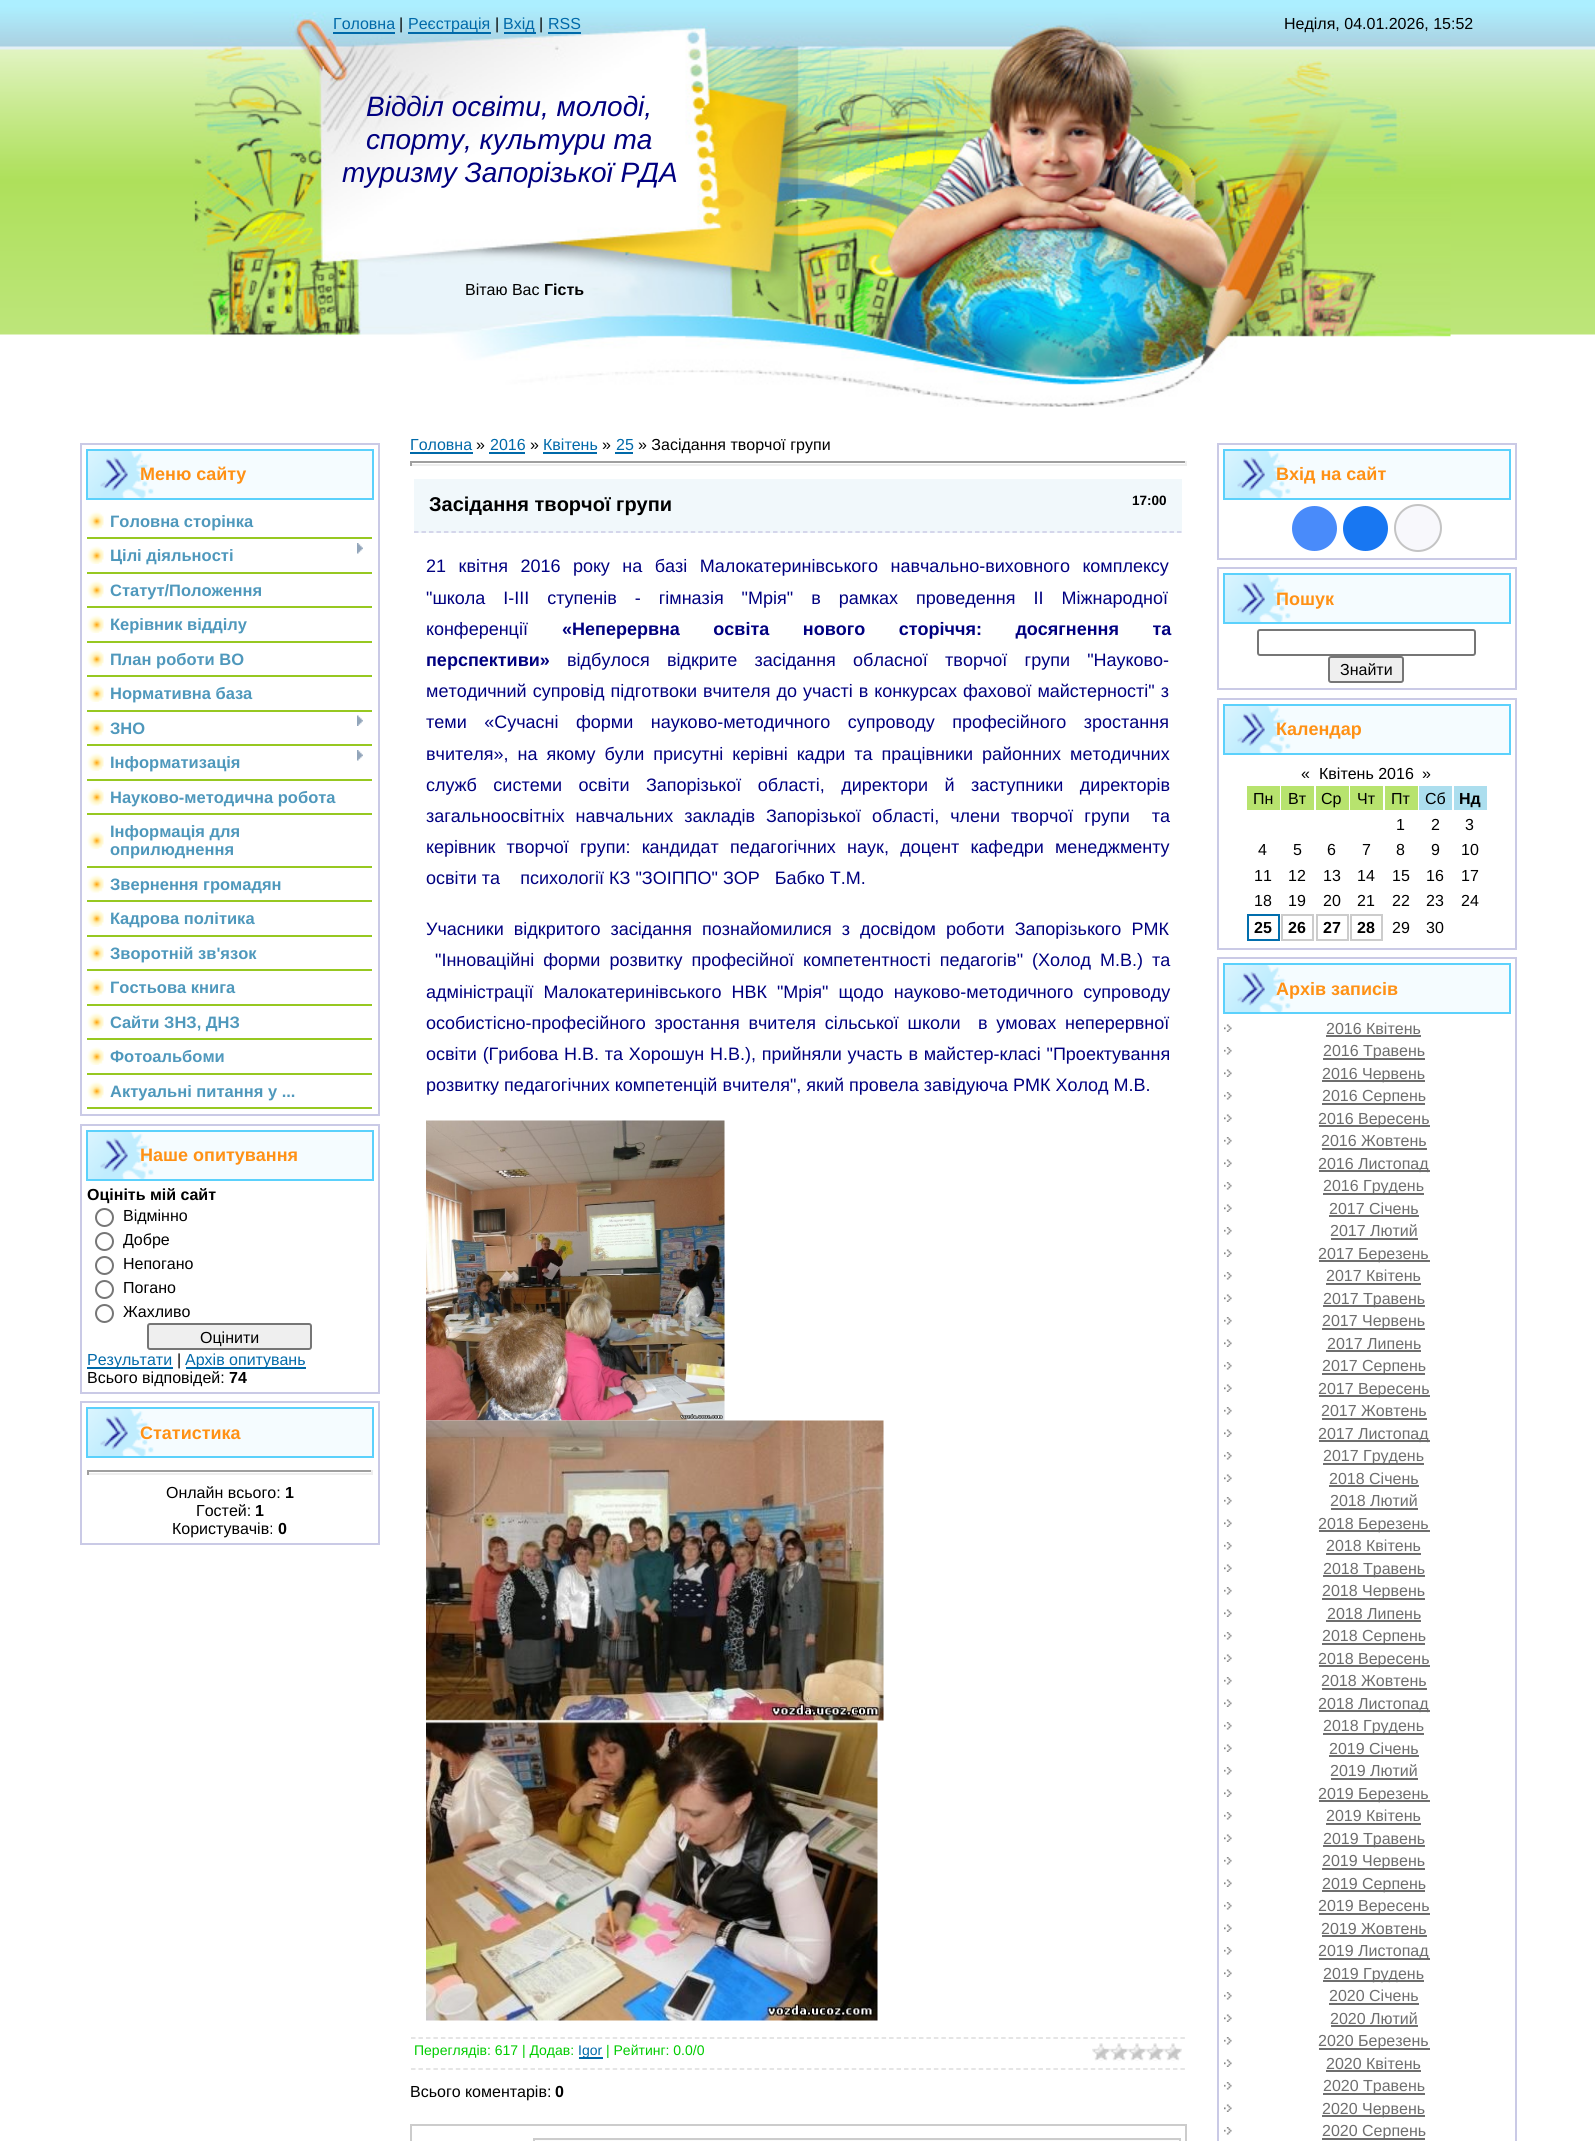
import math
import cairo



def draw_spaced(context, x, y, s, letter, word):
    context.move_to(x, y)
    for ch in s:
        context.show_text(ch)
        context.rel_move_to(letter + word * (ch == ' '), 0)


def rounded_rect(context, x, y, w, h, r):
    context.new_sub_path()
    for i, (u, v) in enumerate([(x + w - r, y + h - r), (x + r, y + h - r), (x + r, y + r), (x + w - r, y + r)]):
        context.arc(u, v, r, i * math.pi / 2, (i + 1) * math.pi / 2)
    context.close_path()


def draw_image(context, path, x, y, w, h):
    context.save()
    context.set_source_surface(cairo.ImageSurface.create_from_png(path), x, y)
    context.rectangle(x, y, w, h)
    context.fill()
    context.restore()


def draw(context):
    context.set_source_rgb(1, 1, 1)
    context.paint()
    draw_image(context, "images/1.png", 0, 0, 1595, 335)
    draw_image(context, "images/2.png", 193, 12, 1258, 395)
    context.set_source_rgb(0, 105 / 255, 169 / 255)
    context.rectangle(333, 32, 62, 2)
    context.fill()
    context.rectangle(408, 32, 83, 2)
    context.fill()
    context.rectangle(504, 32, 32, 2)
    context.fill()
    context.rectangle(548, 32, 33, 2)
    context.fill()
    context.rectangle(81, 444, 298, 671)
    context.set_source_rgb(202 / 255, 202 / 255, 230 / 255)
    context.stroke()
    context.set_source_rgb(245 / 255, 252 / 255, 1)
    context.rectangle(154, 451, 218, 47)
    context.fill()
    draw_image(context, "images/3.png", 88, 451, 66, 47)
    context.rectangle(87, 450, 286, 49)
    context.set_source_rgb(91 / 255, 209 / 255, 252 / 255)
    context.stroke()
    draw_image(context, "images/4.png", 87, 511, 17, 19)
    context.set_source_rgb(151 / 255, 200 / 255, 33 / 255)
    context.rectangle(87, 537, 285, 2)
    context.fill()
    draw_image(context, "images/5.png", 87, 546, 17, 18)
    context.rectangle(87, 572, 285, 2)
    context.fill()
    draw_image(context, "images/6.png", 357, 543, 6, 11)
    draw_image(context, "images/4.png", 87, 580, 17, 19)
    context.rectangle(87, 606, 285, 2)
    context.fill()
    draw_image(context, "images/5.png", 87, 615, 17, 18)
    context.rectangle(87, 641, 285, 2)
    context.fill()
    draw_image(context, "images/4.png", 87, 649, 17, 19)
    context.rectangle(87, 675, 285, 2)
    context.fill()
    draw_image(context, "images/5.png", 87, 684, 17, 18)
    context.rectangle(87, 710, 285, 2)
    context.fill()
    draw_image(context, "images/4.png", 87, 718, 17, 19)
    context.rectangle(87, 744, 285, 2)
    context.fill()
    draw_image(context, "images/7.png", 357, 715, 6, 11)
    draw_image(context, "images/5.png", 87, 753, 17, 18)
    context.rectangle(87, 779, 285, 2)
    context.fill()
    draw_image(context, "images/6.png", 357, 750, 6, 11)
    draw_image(context, "images/4.png", 87, 787, 17, 19)
    context.rectangle(87, 813, 285, 2)
    context.fill()
    draw_image(context, "images/5.png", 87, 831, 17, 18)
    context.rectangle(87, 866, 285, 2)
    context.fill()
    draw_image(context, "images/4.png", 87, 874, 17, 19)
    context.rectangle(87, 900, 285, 2)
    context.fill()
    draw_image(context, "images/5.png", 87, 909, 17, 18)
    context.rectangle(87, 935, 285, 2)
    context.fill()
    draw_image(context, "images/4.png", 87, 943, 17, 19)
    context.rectangle(87, 969, 285, 2)
    context.fill()
    draw_image(context, "images/5.png", 87, 978, 17, 18)
    context.rectangle(87, 1004, 285, 2)
    context.fill()
    draw_image(context, "images/4.png", 87, 1012, 17, 19)
    context.rectangle(87, 1038, 285, 2)
    context.fill()
    draw_image(context, "images/5.png", 87, 1047, 17, 18)
    context.rectangle(87, 1073, 285, 2)
    context.fill()
    draw_image(context, "images/4.png", 87, 1081, 17, 19)
    context.rectangle(87, 1107, 285, 2)
    context.fill()
    context.rectangle(81, 1125, 298, 268)
    context.set_source_rgb(202 / 255, 202 / 255, 230 / 255)
    context.stroke()
    context.set_source_rgb(245 / 255, 252 / 255, 1)
    context.rectangle(154, 1132, 218, 47)
    context.fill()
    draw_image(context, "images/3.png", 88, 1132, 66, 47)
    context.rectangle(87, 1131, 286, 49)
    context.set_source_rgb(91 / 255, 209 / 255, 252 / 255)
    context.stroke()
    context.arc(104.5, 1217.5, 8.5, 0, 2 * math.pi)
    context.set_source_rgb(118 / 255, 118 / 255, 118 / 255)
    context.stroke()
    context.arc(104.5, 1241.5, 8.5, 0, 2 * math.pi)
    context.stroke()
    context.arc(104.5, 1265.5, 8.5, 0, 2 * math.pi)
    context.stroke()
    context.arc(104.5, 1289.5, 8.5, 0, 2 * math.pi)
    context.stroke()
    context.arc(104.5, 1313.5, 8.5, 0, 2 * math.pi)
    context.stroke()
    context.set_source_rgb(239 / 255, 239 / 255, 239 / 255)
    rounded_rect(context, 148, 1324, 163, 25, 2)
    context.fill_preserve()
    context.set_source_rgb(118 / 255, 118 / 255, 118 / 255)
    context.stroke()
    context.set_source_rgb(0, 105 / 255, 169 / 255)
    context.rectangle(87, 1367, 86, 2)
    context.fill()
    context.rectangle(186, 1367, 120, 2)
    context.fill()
    context.rectangle(81, 1402, 298, 142)
    context.set_source_rgb(202 / 255, 202 / 255, 230 / 255)
    context.stroke()
    context.set_source_rgb(245 / 255, 252 / 255, 1)
    context.rectangle(154, 1409, 218, 47)
    context.fill()
    draw_image(context, "images/8.png", 88, 1409, 66, 47)
    context.rectangle(87, 1408, 286, 49)
    context.set_source_rgb(91 / 255, 209 / 255, 252 / 255)
    context.stroke()
    context.set_source_rgb(159 / 255, 159 / 255, 159 / 255)
    context.rectangle(87, 1470, 285, 2)
    context.fill()
    context.set_source_rgb(238 / 255, 238 / 255, 238 / 255)
    context.rectangle(371, 1470, 2, 5)
    context.fill()
    context.rectangle(87, 1473, 285, 2)
    context.fill()
    context.set_source_rgb(159 / 255, 159 / 255, 159 / 255)
    context.rectangle(87, 1470, 2, 5)
    context.fill()
    context.set_source_rgb(0, 105 / 255, 169 / 255)
    context.rectangle(410, 452, 63, 2)
    context.fill()
    context.rectangle(489, 452, 36, 2)
    context.fill()
    context.rectangle(543, 452, 54, 2)
    context.fill()
    context.rectangle(615, 452, 18, 2)
    context.fill()
    context.set_source_rgb(159 / 255, 159 / 255, 159 / 255)
    context.rectangle(410, 461, 777, 2)
    context.fill()
    context.set_source_rgb(238 / 255, 238 / 255, 238 / 255)
    context.rectangle(1185, 461, 2, 5)
    context.fill()
    context.rectangle(410, 464, 777, 2)
    context.fill()
    context.set_source_rgb(159 / 255, 159 / 255, 159 / 255)
    context.rectangle(410, 461, 2, 5)
    context.fill()
    context.set_source_rgb(241 / 255, 248 / 255, 251 / 255)
    context.rectangle(414, 479, 768, 54)
    context.fill()
    context.new_path()
    context.move_to(414, 532)
    context.line_to(1182, 532)
    context.set_source_rgb(203 / 255, 203 / 255, 230 / 255)
    context.set_line_width(1.5)
    context.set_dash([4.5, 2.98])
    context.stroke()
    draw_image(context, "images/9.png", 426, 1120, 299, 301)
    draw_image(context, "images/10.png", 426, 1420, 458, 301)
    draw_image(context, "images/11.png", 426, 1720, 452, 301)
    context.new_path()
    context.move_to(411, 2038)
    context.line_to(1185, 2038)
    context.set_source_rgb(221 / 255, 221 / 255, 221 / 255)
    context.set_dash([4.5, 2.97])
    context.stroke()
    context.new_path()
    context.move_to(411, 2069)
    context.line_to(1185, 2069)
    context.stroke()
    context.set_source_rgb(0, 105 / 255, 169 / 255)
    context.rectangle(579, 2057, 24, 2)
    context.fill()
    draw_image(context, "images/12.png", 1092, 2043, 90, 18)
    context.rectangle(411, 2125, 775, 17)
    context.set_source_rgb(204 / 255, 204 / 255, 204 / 255)
    context.set_line_width(2)
    context.set_dash([])
    context.stroke()
    context.set_source_rgb(252 / 255, 252 / 255, 252 / 255)
    context.rectangle(534, 2139, 646, 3)
    context.fill_preserve()
    context.set_source_rgb(204 / 255, 204 / 255, 204 / 255)
    context.stroke()
    context.rectangle(1218, 444, 298, 115)
    context.set_source_rgb(202 / 255, 202 / 255, 230 / 255)
    context.stroke()
    context.set_source_rgb(245 / 255, 252 / 255, 1)
    context.rectangle(1291, 451, 218, 47)
    context.fill()
    draw_image(context, "images/13.png", 1225, 451, 66, 47)
    context.rectangle(1224, 450, 286, 49)
    context.set_source_rgb(91 / 255, 209 / 255, 252 / 255)
    context.stroke()
    context.set_source_rgb(73 / 255, 139 / 255, 250 / 255)
    context.arc(1314.5, 528.5, 22.5, 0, 2 * math.pi)
    context.fill()
    context.set_source_rgb(24 / 255, 119 / 255, 242 / 255)
    context.arc(1365.5, 528.5, 22.5, 0, 2 * math.pi)
    context.fill()
    context.set_source_rgb(248 / 255, 248 / 255, 252 / 255)
    context.arc(1418, 528, 23, 0, 2 * math.pi)
    context.fill_preserve()
    context.set_source_rgb(196 / 255, 196 / 255, 196 / 255)
    context.stroke()
    context.rectangle(1218, 568, 298, 121)
    context.set_source_rgb(202 / 255, 202 / 255, 230 / 255)
    context.stroke()
    context.set_source_rgb(245 / 255, 252 / 255, 1)
    context.rectangle(1291, 575, 218, 47)
    context.fill()
    draw_image(context, "images/14.png", 1225, 575, 66, 47)
    context.rectangle(1224, 574, 286, 49)
    context.set_source_rgb(91 / 255, 209 / 255, 252 / 255)
    context.stroke()
    rounded_rect(context, 1258, 630, 217, 25, 2)
    context.set_source_rgb(118 / 255, 118 / 255, 118 / 255)
    context.stroke()
    context.set_source_rgb(239 / 255, 239 / 255, 239 / 255)
    rounded_rect(context, 1329, 657, 74, 25, 2)
    context.fill_preserve()
    context.set_source_rgb(118 / 255, 118 / 255, 118 / 255)
    context.stroke()
    context.rectangle(1218, 699, 298, 250)
    context.set_source_rgb(202 / 255, 202 / 255, 230 / 255)
    context.stroke()
    context.set_source_rgb(245 / 255, 252 / 255, 1)
    context.rectangle(1291, 706, 218, 47)
    context.fill()
    draw_image(context, "images/13.png", 1225, 706, 66, 47)
    context.rectangle(1224, 705, 286, 49)
    context.set_source_rgb(91 / 255, 209 / 255, 252 / 255)
    context.stroke()
    context.set_source_rgb(183 / 255, 227 / 255, 110 / 255)
    context.rectangle(1247, 786, 33, 24)
    context.fill()
    context.rectangle(1281, 786, 33, 24)
    context.fill()
    context.rectangle(1316, 786, 33, 24)
    context.fill()
    context.rectangle(1350, 786, 33, 24)
    context.fill()
    context.rectangle(1385, 786, 33, 24)
    context.fill()
    context.set_source_rgb(172 / 255, 222 / 255, 238 / 255)
    context.rectangle(1419, 786, 33, 24)
    context.fill()
    context.rectangle(1454, 786, 33, 24)
    context.fill()
    context.rectangle(1248, 915, 31, 25)
    context.set_source_rgb(1 / 255, 110 / 255, 173 / 255)
    context.stroke()
    context.rectangle(1282, 915, 31, 25)
    context.set_source_rgb(204 / 255, 204 / 255, 204 / 255)
    context.stroke()
    context.rectangle(1317, 915, 31, 25)
    context.stroke()
    context.rectangle(1351, 915, 31, 25)
    context.stroke()
    context.rectangle(1218, 958, 298, 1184)
    context.set_source_rgb(202 / 255, 202 / 255, 230 / 255)
    context.stroke()
    context.set_source_rgb(245 / 255, 252 / 255, 1)
    context.rectangle(1291, 965, 218, 47)
    context.fill()
    draw_image(context, "images/14.png", 1225, 965, 66, 47)
    context.rectangle(1224, 964, 286, 49)
    context.set_source_rgb(91 / 255, 209 / 255, 252 / 255)
    context.stroke()
    draw_image(context, "images/15.png", 1224, 1024, 8, 8)
    context.set_source_rgb(110 / 255, 110 / 255, 110 / 255)
    context.rectangle(1326, 1035, 95, 2)
    context.fill()
    draw_image(context, "images/16.png", 1224, 1047, 8, 8)
    context.rectangle(1323, 1058, 102, 2)
    context.fill()
    draw_image(context, "images/15.png", 1224, 1069, 8, 8)
    context.rectangle(1322, 1080, 103, 2)
    context.fill()
    draw_image(context, "images/16.png", 1224, 1092, 8, 8)
    context.rectangle(1322, 1103, 103, 2)
    context.fill()
    draw_image(context, "images/15.png", 1224, 1114, 8, 8)
    context.rectangle(1319, 1125, 111, 2)
    context.fill()
    draw_image(context, "images/16.png", 1224, 1137, 8, 8)
    context.rectangle(1322, 1148, 105, 2)
    context.fill()
    draw_image(context, "images/15.png", 1224, 1159, 8, 8)
    context.rectangle(1319, 1170, 111, 2)
    context.fill()
    draw_image(context, "images/16.png", 1224, 1182, 8, 8)
    context.rectangle(1323, 1193, 101, 2)
    context.fill()
    draw_image(context, "images/15.png", 1224, 1204, 8, 8)
    context.rectangle(1329, 1215, 90, 2)
    context.fill()
    draw_image(context, "images/16.png", 1224, 1227, 8, 8)
    context.rectangle(1331, 1238, 87, 2)
    context.fill()
    draw_image(context, "images/15.png", 1224, 1249, 8, 8)
    context.rectangle(1319, 1260, 111, 2)
    context.fill()
    draw_image(context, "images/16.png", 1224, 1272, 8, 8)
    context.rectangle(1326, 1283, 95, 2)
    context.fill()
    draw_image(context, "images/15.png", 1224, 1294, 8, 8)
    context.rectangle(1323, 1305, 102, 2)
    context.fill()
    draw_image(context, "images/16.png", 1224, 1317, 8, 8)
    context.rectangle(1322, 1328, 103, 2)
    context.fill()
    draw_image(context, "images/15.png", 1224, 1339, 8, 8)
    context.rectangle(1326, 1350, 95, 2)
    context.fill()
    draw_image(context, "images/16.png", 1224, 1362, 8, 8)
    context.rectangle(1322, 1373, 103, 2)
    context.fill()
    draw_image(context, "images/15.png", 1224, 1384, 8, 8)
    context.rectangle(1319, 1395, 111, 2)
    context.fill()
    draw_image(context, "images/16.png", 1224, 1407, 8, 8)
    context.rectangle(1322, 1418, 105, 2)
    context.fill()
    draw_image(context, "images/15.png", 1224, 1429, 8, 8)
    context.rectangle(1319, 1440, 111, 2)
    context.fill()
    draw_image(context, "images/16.png", 1224, 1452, 8, 8)
    context.rectangle(1323, 1463, 101, 2)
    context.fill()
    draw_image(context, "images/15.png", 1224, 1474, 8, 8)
    context.rectangle(1329, 1485, 90, 2)
    context.fill()
    draw_image(context, "images/16.png", 1224, 1497, 8, 8)
    context.rectangle(1331, 1508, 87, 2)
    context.fill()
    draw_image(context, "images/15.png", 1224, 1519, 8, 8)
    context.rectangle(1319, 1530, 111, 2)
    context.fill()
    draw_image(context, "images/16.png", 1224, 1542, 8, 8)
    context.rectangle(1326, 1553, 95, 2)
    context.fill()
    draw_image(context, "images/15.png", 1224, 1564, 8, 8)
    context.rectangle(1323, 1575, 102, 2)
    context.fill()
    draw_image(context, "images/16.png", 1224, 1587, 8, 8)
    context.rectangle(1322, 1598, 103, 2)
    context.fill()
    draw_image(context, "images/15.png", 1224, 1609, 8, 8)
    context.rectangle(1326, 1620, 95, 2)
    context.fill()
    draw_image(context, "images/16.png", 1224, 1632, 8, 8)
    context.rectangle(1322, 1643, 103, 2)
    context.fill()
    draw_image(context, "images/15.png", 1224, 1654, 8, 8)
    context.rectangle(1319, 1665, 111, 2)
    context.fill()
    draw_image(context, "images/16.png", 1224, 1677, 8, 8)
    context.rectangle(1322, 1688, 105, 2)
    context.fill()
    draw_image(context, "images/15.png", 1224, 1699, 8, 8)
    context.rectangle(1319, 1710, 111, 2)
    context.fill()
    draw_image(context, "images/16.png", 1224, 1722, 8, 8)
    context.rectangle(1323, 1733, 101, 2)
    context.fill()
    draw_image(context, "images/15.png", 1224, 1744, 8, 8)
    context.rectangle(1329, 1755, 90, 2)
    context.fill()
    draw_image(context, "images/16.png", 1224, 1767, 8, 8)
    context.rectangle(1331, 1778, 87, 2)
    context.fill()
    draw_image(context, "images/15.png", 1224, 1789, 8, 8)
    context.rectangle(1319, 1800, 111, 2)
    context.fill()
    draw_image(context, "images/16.png", 1224, 1812, 8, 8)
    context.rectangle(1326, 1823, 95, 2)
    context.fill()
    draw_image(context, "images/15.png", 1224, 1834, 8, 8)
    context.rectangle(1323, 1845, 102, 2)
    context.fill()
    draw_image(context, "images/16.png", 1224, 1857, 8, 8)
    context.rectangle(1322, 1868, 103, 2)
    context.fill()
    draw_image(context, "images/15.png", 1224, 1879, 8, 8)
    context.rectangle(1322, 1890, 103, 2)
    context.fill()
    draw_image(context, "images/16.png", 1224, 1902, 8, 8)
    context.rectangle(1319, 1913, 111, 2)
    context.fill()
    draw_image(context, "images/15.png", 1224, 1924, 8, 8)
    context.rectangle(1322, 1935, 105, 2)
    context.fill()
    draw_image(context, "images/16.png", 1224, 1947, 8, 8)
    context.rectangle(1319, 1958, 111, 2)
    context.fill()
    draw_image(context, "images/15.png", 1224, 1969, 8, 8)
    context.rectangle(1323, 1980, 101, 2)
    context.fill()
    draw_image(context, "images/16.png", 1224, 1992, 8, 8)
    context.rectangle(1329, 2003, 90, 2)
    context.fill()
    draw_image(context, "images/15.png", 1224, 2014, 8, 8)
    context.rectangle(1331, 2025, 87, 2)
    context.fill()
    draw_image(context, "images/16.png", 1224, 2037, 8, 8)
    context.rectangle(1319, 2048, 111, 2)
    context.fill()
    draw_image(context, "images/15.png", 1224, 2059, 8, 8)
    context.rectangle(1326, 2070, 95, 2)
    context.fill()
    draw_image(context, "images/16.png", 1224, 2082, 8, 8)
    context.rectangle(1323, 2093, 102, 2)
    context.fill()
    draw_image(context, "images/15.png", 1224, 2104, 8, 8)
    context.rectangle(1322, 2115, 103, 2)
    context.fill()
    draw_image(context, "images/16.png", 1224, 2127, 8, 8)
    context.rectangle(1322, 2138, 103, 2)
    context.fill()
    context.select_font_face("Liberation Sans")
    context.set_font_size(16)
    context.set_source_rgb(0, 105 / 255, 169 / 255)
    context.move_to(333, 29)
    context.show_text("Головна")
    context.set_source_rgb(0, 0, 0)
    context.move_to(399, 29)
    context.show_text("|")
    context.set_source_rgb(0, 105 / 255, 169 / 255)
    context.move_to(408, 29)
    context.show_text("Реєстрація")
    context.set_source_rgb(0, 0, 0)
    context.move_to(495, 29)
    context.show_text("|")
    context.set_source_rgb(0, 105 / 255, 169 / 255)
    context.move_to(503, 29)
    context.show_text("Вхід")
    context.set_source_rgb(0, 0, 0)
    context.move_to(539, 29)
    context.show_text("|")
    context.set_source_rgb(0, 105 / 255, 169 / 255)
    context.move_to(548, 29)
    context.show_text("RSS")
    context.set_source_rgb(0, 0, 0)
    context.move_to(1284, 29)
    context.show_text("Неділя, 04.01.2026, 15:52")
    context.select_font_face("Liberation Sans", cairo.FontSlant.ITALIC)
    context.set_font_size(28)
    context.set_source_rgb(0, 0, 128 / 255)
    context.move_to(366, 116)
    context.show_text("Відділ освіти, молоді,")
    context.move_to(366, 149)
    context.show_text("спорту, культури та")
    context.move_to(342, 182)
    context.show_text("туризму Запорізької РДА")
    context.select_font_face("Liberation Sans")
    context.set_font_size(16)
    context.set_source_rgb(0, 0, 0)
    context.move_to(465, 295)
    context.show_text("Вітаю Вас")
    context.select_font_face("Liberation Sans", cairo.FontSlant.NORMAL, cairo.FontWeight.BOLD)
    context.move_to(544, 295)
    context.show_text("Гість")
    context.set_font_size(18)
    context.set_source_rgb(1, 145 / 255, 21 / 255)
    context.move_to(140, 480)
    context.show_text("Меню сайту")
    context.set_font_size(16.5)
    context.set_source_rgb(79 / 255, 152 / 255, 188 / 255)
    context.move_to(110, 527)
    context.show_text("Головна сторінка")
    context.move_to(110, 561)
    context.show_text("Цілі діяльності")
    context.move_to(110, 596)
    context.show_text("Статут/Положення")
    context.move_to(110, 630)
    context.show_text("Керівник відділу")
    context.move_to(110, 665)
    context.show_text("План роботи ВО")
    context.move_to(110, 699)
    context.show_text("Нормативна база")
    context.move_to(110, 734)
    context.show_text("ЗНО")
    context.move_to(110, 768)
    context.show_text("Інформатизація")
    context.move_to(110, 803)
    context.show_text("Науково-методична робота")
    context.move_to(110, 837)
    context.show_text("Інформація для")
    context.move_to(110, 855)
    context.show_text("оприлюднення")
    context.move_to(110, 890)
    context.show_text("Звернення громадян")
    context.move_to(110, 924)
    context.show_text("Кадрова політика")
    context.move_to(110, 959)
    context.show_text("Зворотній зв'язок")
    context.move_to(110, 993)
    context.show_text("Гостьова книга")
    context.move_to(110, 1028)
    context.show_text("Сайти ЗНЗ, ДНЗ")
    context.move_to(110, 1062)
    context.show_text("Фотоальбоми")
    context.move_to(110, 1097)
    context.show_text("Актуальні питання у ...")
    context.set_font_size(18)
    context.set_source_rgb(1, 145 / 255, 21 / 255)
    context.move_to(140, 1161)
    context.show_text("Наше опитування")
    context.set_font_size(16)
    context.set_source_rgb(0, 0, 0)
    context.move_to(87, 1200)
    context.show_text("Оцініть мій сайт")
    context.select_font_face("Liberation Sans")
    context.move_to(123, 1221)
    context.show_text("Відмінно")
    context.move_to(123, 1245)
    context.show_text("Добре")
    context.move_to(123, 1269)
    context.show_text("Непогано")
    context.move_to(123, 1293)
    context.show_text("Погано")
    context.move_to(123, 1317)
    context.show_text("Жахливо")
    context.move_to(200, 1343)
    context.show_text("Оцінити")
    context.set_source_rgb(0, 105 / 255, 169 / 255)
    context.move_to(87, 1365)
    context.show_text("Результати")
    context.set_source_rgb(0, 0, 0)
    context.move_to(177, 1365)
    context.show_text("|")
    context.set_source_rgb(0, 105 / 255, 169 / 255)
    context.move_to(185, 1365)
    context.show_text("Архів опитувань")
    context.set_source_rgb(0, 0, 0)
    context.move_to(87, 1383)
    context.show_text("Всього відповідей:")
    context.select_font_face("Liberation Sans", cairo.FontSlant.NORMAL, cairo.FontWeight.BOLD)
    context.move_to(229, 1383)
    context.show_text("74")
    context.set_font_size(18)
    context.set_source_rgb(1, 145 / 255, 21 / 255)
    context.move_to(140, 1439)
    context.show_text("Статистика")
    context.select_font_face("Liberation Sans")
    context.set_font_size(16)
    context.set_source_rgb(0, 0, 0)
    context.move_to(166, 1498)
    context.show_text("Онлайн всього:")
    context.select_font_face("Liberation Sans", cairo.FontSlant.NORMAL, cairo.FontWeight.BOLD)
    context.move_to(285, 1498)
    context.show_text("1")
    context.select_font_face("Liberation Sans")
    context.move_to(196, 1516)
    context.show_text("Гостей:")
    context.select_font_face("Liberation Sans", cairo.FontSlant.NORMAL, cairo.FontWeight.BOLD)
    context.move_to(255, 1516)
    context.show_text("1")
    context.select_font_face("Liberation Sans")
    context.move_to(172, 1534)
    context.show_text("Користувачів:")
    context.select_font_face("Liberation Sans", cairo.FontSlant.NORMAL, cairo.FontWeight.BOLD)
    context.move_to(278, 1534)
    context.show_text("0")
    context.select_font_face("Liberation Sans")
    context.set_source_rgb(0, 105 / 255, 169 / 255)
    context.move_to(410, 450)
    context.show_text("Головна")
    context.set_source_rgb(0, 0, 0)
    context.move_to(476, 450)
    context.show_text("»")
    context.set_source_rgb(0, 105 / 255, 169 / 255)
    context.move_to(490, 450)
    context.show_text("2016")
    context.set_source_rgb(0, 0, 0)
    context.move_to(530, 450)
    context.show_text("»")
    context.set_source_rgb(0, 105 / 255, 169 / 255)
    context.move_to(543, 450)
    context.show_text("Квітень")
    context.set_source_rgb(0, 0, 0)
    context.move_to(602, 450)
    context.show_text("»")
    context.set_source_rgb(0, 105 / 255, 169 / 255)
    context.move_to(616, 450)
    context.show_text("25")
    context.set_source_rgb(0, 0, 0)
    context.move_to(638, 450)
    context.show_text("» Засідання творчої групи")
    context.select_font_face("Liberation Sans", cairo.FontSlant.NORMAL, cairo.FontWeight.BOLD)
    context.set_font_size(20)
    context.move_to(429, 511)
    context.show_text("Засідання творчої групи")
    context.set_font_size(13.5)
    context.move_to(1132, 505)
    context.show_text("17:00")
    context.select_font_face("Liberation Sans")
    context.set_font_size(18)
    context.set_source_rgb(0, 0, 128 / 255)
    draw_spaced(context, 426, 572, "21 квітня 2016 року на базі Малокатеринівського навчально-виховного комплексу", 0, 7.5)
    draw_spaced(context, 426, 604, "\"школа І-ІІІ ступенів - гімназія \"Мрія\" в рамках проведення ІІ Міжнародної", 0, 13)
    context.move_to(426, 635)
    context.show_text("конференції")
    context.select_font_face("Liberation Sans", cairo.FontSlant.NORMAL, cairo.FontWeight.BOLD)
    draw_spaced(context, 562, 635, "«Неперервна освіта нового сторіччя: досягнення та", 0, 28.5)
    context.move_to(426, 666)
    context.show_text("перспективи»")
    context.select_font_face("Liberation Sans")
    draw_spaced(context, 567, 666, "відбулося відкрите засідання обласної творчої групи \"Науково-", 0, 12.25)
    draw_spaced(context, 426, 697, "методичний супровід підготвоки вчителя до участі в конкурсах фахової майстерності\" з", 0, 1)
    draw_spaced(context, 426, 728, "теми «Сучасні форми науково-методичного супроводу професійного зростання", 0, 12.5)
    draw_spaced(context, 426, 760, "вчителя», на якому були присутні керівні кадри та працівники районних методичних", 0, 4)
    draw_spaced(context, 426, 791, "служб системи освіти Запорізької області, директори й заступники директорів", 0, 11.5)
    draw_spaced(context, 426, 822, "загальноосвітніх навчальних закладів Запорізької області, члени творчої групи  та", 0, 6)
    draw_spaced(context, 426, 853, "керівник творчої групи: кандидат педагогічних наук, доцент кафедри менеджменту", 0, 6.25)
    context.move_to(426, 884)
    context.show_text("освіти та    психології КЗ \"ЗОІППО\" ЗОР   Бабко Т.М.")
    draw_spaced(context, 426, 935, "Учасники відкритого засідання познайомилися з досвідом роботи Запорізького РМК", 0, 5)
    draw_spaced(context, 435, 966, "\"Інноваційні форми розвитку професійної компетентності педагогів\" (Холод М.В.) та", 0, 4)
    draw_spaced(context, 426, 998, "адміністрації Малокатеринівського НВК \"Мрія\" щодо науково-методичного супроводу", 0, 5)
    draw_spaced(context, 426, 1029, "особистісно-професійного зростання вчителя сільської школи  в умовах неперервної", 0, 3.75)
    draw_spaced(context, 426, 1060, "освіти (Грибова Н.В. та Хорошун Н.В.), прийняли участь в майстер-класі \"Проектування", 0, 0.75)
    context.move_to(426, 1091)
    context.show_text("розвитку педагогічних компетенцій вчителя\", який провела завідуюча РМК Холод М.В.")
    context.set_font_size(14)
    context.set_source_rgb(0, 204 / 255, 0)
    context.move_to(414, 2055)
    context.show_text("Переглядів: 617 | Додав:")
    context.set_source_rgb(0, 105 / 255, 169 / 255)
    context.move_to(578, 2055)
    context.show_text("Igor")
    context.set_source_rgb(0, 204 / 255, 0)
    context.move_to(606, 2055)
    context.show_text("| Рейтинг: 0.0/0")
    context.set_font_size(16)
    context.set_source_rgb(0, 0, 0)
    context.move_to(410, 2097)
    context.show_text("Всього коментарів:")
    context.select_font_face("Liberation Sans", cairo.FontSlant.NORMAL, cairo.FontWeight.BOLD)
    context.move_to(555, 2097)
    context.show_text("0")
    context.set_font_size(18)
    context.set_source_rgb(1, 145 / 255, 21 / 255)
    context.move_to(1276, 480)
    context.show_text("Вхід на сайт")
    context.move_to(1276, 605)
    context.show_text("Пошук")
    context.select_font_face("Liberation Sans")
    context.set_font_size(16)
    context.set_source_rgb(0, 0, 0)
    context.move_to(1340, 675)
    context.show_text("Знайти")
    context.select_font_face("Liberation Sans", cairo.FontSlant.NORMAL, cairo.FontWeight.BOLD)
    context.set_font_size(18)
    context.set_source_rgb(1, 145 / 255, 21 / 255)
    context.move_to(1276, 735)
    context.show_text("Календар")
    context.select_font_face("Liberation Sans")
    context.set_font_size(16)
    context.set_source_rgb(0, 0, 0)
    context.move_to(1301, 779)
    context.show_text("«")
    context.move_to(1319, 779)
    context.show_text("Квітень 2016")
    context.move_to(1422, 779)
    context.show_text("»")
    context.move_to(1253, 804)
    context.show_text("Пн")
    context.move_to(1288, 804)
    context.show_text("Вт")
    context.move_to(1321, 804)
    context.show_text("Ср")
    context.move_to(1357, 804)
    context.show_text("Чт")
    context.move_to(1391, 804)
    context.show_text("Пт")
    context.move_to(1425, 804)
    context.show_text("Сб")
    context.select_font_face("Liberation Sans", cairo.FontSlant.NORMAL, cairo.FontWeight.BOLD)
    context.move_to(1459, 804)
    context.show_text("Нд")
    context.select_font_face("Liberation Sans")
    context.move_to(1396, 830)
    context.show_text("1")
    context.move_to(1431, 830)
    context.show_text("2")
    context.move_to(1465, 830)
    context.show_text("3")
    context.move_to(1258, 855)
    context.show_text("4")
    context.move_to(1293, 855)
    context.show_text("5")
    context.move_to(1327, 855)
    context.show_text("6")
    context.move_to(1362, 855)
    context.show_text("7")
    context.move_to(1396, 855)
    context.show_text("8")
    context.move_to(1431, 855)
    context.show_text("9")
    context.move_to(1461, 855)
    context.show_text("10")
    context.move_to(1254, 881)
    context.show_text("11")
    context.move_to(1288, 881)
    context.show_text("12")
    context.move_to(1323, 881)
    context.show_text("13")
    context.move_to(1357, 881)
    context.show_text("14")
    context.move_to(1392, 881)
    context.show_text("15")
    context.move_to(1426, 881)
    context.show_text("16")
    context.move_to(1461, 881)
    context.show_text("17")
    context.move_to(1254, 906)
    context.show_text("18")
    context.move_to(1288, 906)
    context.show_text("19")
    context.move_to(1323, 906)
    context.show_text("20")
    context.move_to(1357, 906)
    context.show_text("21")
    context.move_to(1392, 906)
    context.show_text("22")
    context.move_to(1426, 906)
    context.show_text("23")
    context.move_to(1461, 906)
    context.show_text("24")
    context.select_font_face("Liberation Sans", cairo.FontSlant.NORMAL, cairo.FontWeight.BOLD)
    context.move_to(1254, 933)
    context.show_text("25")
    context.move_to(1288, 933)
    context.show_text("26")
    context.move_to(1323, 933)
    context.show_text("27")
    context.move_to(1357, 933)
    context.show_text("28")
    context.select_font_face("Liberation Sans")
    context.move_to(1392, 933)
    context.show_text("29")
    context.move_to(1426, 933)
    context.show_text("30")
    context.select_font_face("Liberation Sans", cairo.FontSlant.NORMAL, cairo.FontWeight.BOLD)
    context.set_font_size(18)
    context.set_source_rgb(1, 145 / 255, 21 / 255)
    context.move_to(1276, 995)
    context.show_text("Архів записів")
    context.select_font_face("Liberation Sans")
    context.set_font_size(16)
    context.set_source_rgb(110 / 255, 110 / 255, 110 / 255)
    context.move_to(1326, 1034)
    context.show_text("2016 Квітень")
    context.move_to(1323, 1056)
    context.show_text("2016 Травень")
    context.move_to(1322, 1079)
    context.show_text("2016 Червень")
    context.move_to(1322, 1101)
    context.show_text("2016 Серпень")
    context.move_to(1318, 1124)
    context.show_text("2016 Вересень")
    context.move_to(1321, 1146)
    context.show_text("2016 Жовтень")
    context.move_to(1318, 1169)
    context.show_text("2016 Листопад")
    context.move_to(1323, 1191)
    context.show_text("2016 Грудень")
    context.move_to(1329, 1214)
    context.show_text("2017 Січень")
    context.move_to(1330, 1236)
    context.show_text("2017 Лютий")
    context.move_to(1318, 1259)
    context.show_text("2017 Березень")
    context.move_to(1326, 1281)
    context.show_text("2017 Квітень")
    context.move_to(1323, 1304)
    context.show_text("2017 Травень")
    context.move_to(1322, 1326)
    context.show_text("2017 Червень")
    context.move_to(1327, 1349)
    context.show_text("2017 Липень")
    context.move_to(1322, 1371)
    context.show_text("2017 Серпень")
    context.move_to(1318, 1394)
    context.show_text("2017 Вересень")
    context.move_to(1321, 1416)
    context.show_text("2017 Жовтень")
    context.move_to(1318, 1439)
    context.show_text("2017 Листопад")
    context.move_to(1323, 1461)
    context.show_text("2017 Грудень")
    context.move_to(1329, 1484)
    context.show_text("2018 Січень")
    context.move_to(1330, 1506)
    context.show_text("2018 Лютий")
    context.move_to(1318, 1529)
    context.show_text("2018 Березень")
    context.move_to(1326, 1551)
    context.show_text("2018 Квітень")
    context.move_to(1323, 1574)
    context.show_text("2018 Травень")
    context.move_to(1322, 1596)
    context.show_text("2018 Червень")
    context.move_to(1327, 1619)
    context.show_text("2018 Липень")
    context.move_to(1322, 1641)
    context.show_text("2018 Серпень")
    context.move_to(1318, 1664)
    context.show_text("2018 Вересень")
    context.move_to(1321, 1686)
    context.show_text("2018 Жовтень")
    context.move_to(1318, 1709)
    context.show_text("2018 Листопад")
    context.move_to(1323, 1731)
    context.show_text("2018 Грудень")
    context.move_to(1329, 1754)
    context.show_text("2019 Січень")
    context.move_to(1330, 1776)
    context.show_text("2019 Лютий")
    context.move_to(1318, 1799)
    context.show_text("2019 Березень")
    context.move_to(1326, 1821)
    context.show_text("2019 Квітень")
    context.move_to(1323, 1844)
    context.show_text("2019 Травень")
    context.move_to(1322, 1866)
    context.show_text("2019 Червень")
    context.move_to(1322, 1889)
    context.show_text("2019 Серпень")
    context.move_to(1318, 1911)
    context.show_text("2019 Вересень")
    context.move_to(1321, 1934)
    context.show_text("2019 Жовтень")
    context.move_to(1318, 1956)
    context.show_text("2019 Листопад")
    context.move_to(1323, 1979)
    context.show_text("2019 Грудень")
    context.move_to(1329, 2001)
    context.show_text("2020 Січень")
    context.move_to(1330, 2024)
    context.show_text("2020 Лютий")
    context.move_to(1318, 2046)
    context.show_text("2020 Березень")
    context.move_to(1326, 2069)
    context.show_text("2020 Квітень")
    context.move_to(1323, 2091)
    context.show_text("2020 Травень")
    context.move_to(1322, 2114)
    context.show_text("2020 Червень")
    context.move_to(1322, 2136)
    context.show_text("2020 Серпень")


surface = cairo.ImageSurface(cairo.Format.RGB24, 1595, 2141)
context = cairo.Context(surface)
options = cairo.FontOptions()
options.set_hint_metrics(cairo.HintMetrics.OFF)
options.set_hint_style(cairo.HintStyle.NONE)
context.set_font_options(options)
context.set_miter_limit(4)
draw(context)
surface.write_to_png("out.png")
